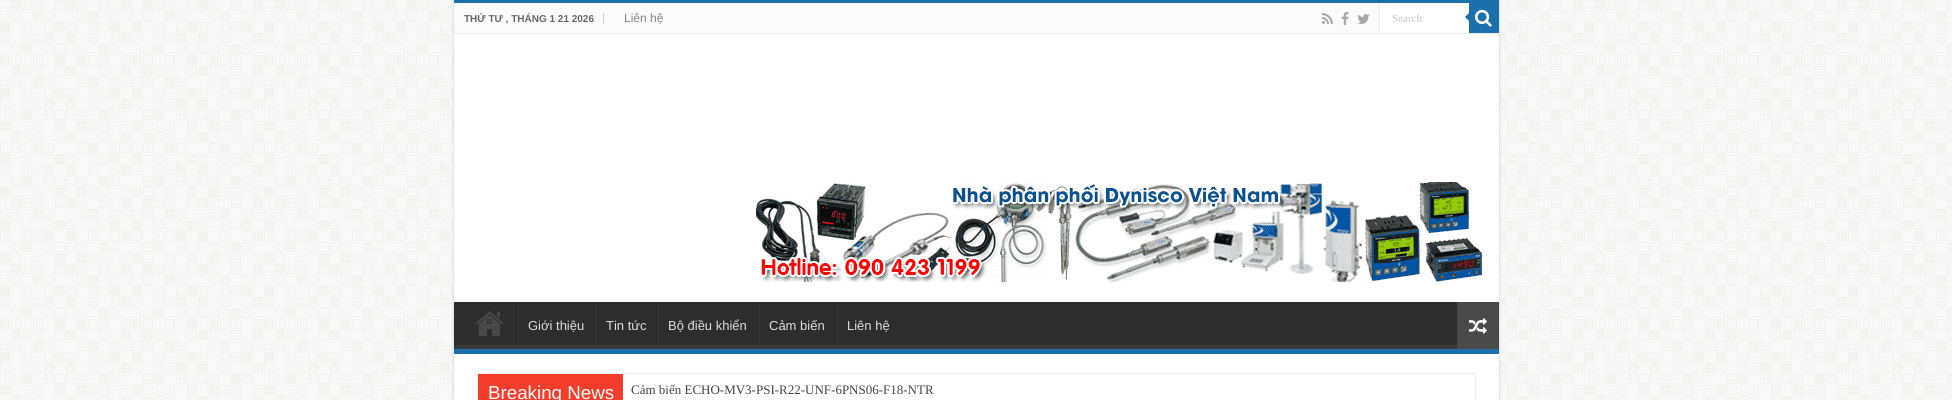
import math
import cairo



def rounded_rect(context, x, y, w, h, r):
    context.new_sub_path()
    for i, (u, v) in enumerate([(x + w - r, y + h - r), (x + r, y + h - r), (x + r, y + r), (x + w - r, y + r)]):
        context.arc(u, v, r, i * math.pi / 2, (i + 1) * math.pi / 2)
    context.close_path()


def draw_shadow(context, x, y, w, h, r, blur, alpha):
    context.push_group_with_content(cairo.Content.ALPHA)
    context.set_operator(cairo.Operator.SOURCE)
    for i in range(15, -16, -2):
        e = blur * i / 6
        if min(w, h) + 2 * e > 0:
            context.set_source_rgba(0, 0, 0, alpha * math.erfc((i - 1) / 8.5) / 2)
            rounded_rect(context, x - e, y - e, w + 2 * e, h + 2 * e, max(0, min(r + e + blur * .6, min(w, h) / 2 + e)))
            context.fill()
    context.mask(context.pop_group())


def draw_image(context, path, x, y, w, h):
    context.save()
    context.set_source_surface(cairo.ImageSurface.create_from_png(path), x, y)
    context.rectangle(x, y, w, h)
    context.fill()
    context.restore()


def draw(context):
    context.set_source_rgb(1, 1, 1)
    context.paint()
    draw_image(context, "images/1.png", 0, 0, 1952, 400)
    context.set_source_rgb(202 / 255, 202 / 255, 202 / 255)
    draw_shadow(context, 454, 0, 1045, 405, 0, 1.5, 1)
    context.set_source_rgb(1, 1, 1)
    context.rectangle(454, 34, 1045, 366)
    context.fill()
    context.set_source_rgb(27 / 255, 111 / 255, 170 / 255)
    context.rectangle(454, 0, 1045, 3)
    context.fill()
    context.set_source_rgb(251 / 255, 251 / 255, 251 / 255)
    context.rectangle(454, 3, 1015, 30)
    context.fill()
    context.set_source_rgb(236 / 255, 236 / 255, 236 / 255)
    context.rectangle(454, 33, 1045, 1)
    context.fill()
    context.set_source_rgb(204 / 255, 204 / 255, 204 / 255)
    context.rectangle(603, 13, 1, 11)
    context.fill()
    draw_image(context, "images/2.png", 1322, 13, 11, 11)
    draw_image(context, "images/3.png", 1341, 12, 8, 13)
    draw_image(context, "images/4.png", 1357, 14, 13, 10)
    context.set_source_rgb(1, 1, 1)
    context.rectangle(1380, 3, 89, 29)
    context.fill()
    context.set_source_rgb(236 / 255, 236 / 255, 236 / 255)
    context.rectangle(1379, 3, 1, 29)
    context.fill()
    context.set_source_rgb(27 / 255, 111 / 255, 170 / 255)
    context.rectangle(1469, 3, 30, 30)
    context.fill()
    draw_image(context, "images/5.png", 1475, 9, 17, 18)
    context.new_path()
    context.move_to(1469, 13)
    context.line_to(1469, 21)
    context.line_to(1465, 17)
    context.close_path()
    context.fill()
    draw_image(context, "images/6.png", 756, 182, 727, 100)
    context.set_source_rgb(45 / 255, 45 / 255, 45 / 255)
    context.rectangle(454, 302, 1003, 43)
    context.fill()
    context.save()
    context.rectangle(454, 302, 1045, 47)
    context.clip()
    context.set_source_rgb(57 / 255, 57 / 255, 57 / 255)
    context.set_fill_rule(cairo.FillRule.EVEN_ODD)
    context.new_path()
    context.move_to(355, 203)
    context.line_to(1598, 203)
    context.line_to(1598, 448)
    context.line_to(355, 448)
    context.close_path()
    context.move_to(453, 296)
    context.line_to(1499, 296)
    context.line_to(1499, 336)
    context.curve_to(1499, 337, 1500, 345, 1498, 345)
    context.line_to(453, 345)
    context.line_to(452, 344)
    context.line_to(452, 296)
    context.close_path()
    context.fill()
    context.restore()
    context.set_source_rgb(27 / 255, 111 / 255, 170 / 255)
    context.rectangle(454, 349, 1045, 5)
    context.fill()
    draw_image(context, "images/7.png", 475, 311, 29, 25)
    context.set_source_rgb(34 / 255, 34 / 255, 34 / 255)
    context.rectangle(516, 302, 1, 42)
    context.fill()
    context.set_source_rgb(56 / 255, 56 / 255, 56 / 255)
    context.rectangle(517, 302, 1, 42)
    context.fill()
    context.set_source_rgb(34 / 255, 34 / 255, 34 / 255)
    context.rectangle(594, 302, 1, 42)
    context.fill()
    context.set_source_rgb(56 / 255, 56 / 255, 56 / 255)
    context.rectangle(595, 302, 1, 42)
    context.fill()
    context.set_source_rgb(34 / 255, 34 / 255, 34 / 255)
    context.rectangle(656, 302, 1, 42)
    context.fill()
    context.set_source_rgb(56 / 255, 56 / 255, 56 / 255)
    context.rectangle(657, 302, 1, 42)
    context.fill()
    context.set_source_rgb(34 / 255, 34 / 255, 34 / 255)
    context.rectangle(757, 302, 1, 42)
    context.fill()
    context.set_source_rgb(56 / 255, 56 / 255, 56 / 255)
    context.rectangle(758, 302, 1, 42)
    context.fill()
    context.set_source_rgb(34 / 255, 34 / 255, 34 / 255)
    context.rectangle(835, 302, 1, 42)
    context.fill()
    context.set_source_rgb(56 / 255, 56 / 255, 56 / 255)
    context.rectangle(836, 302, 1, 42)
    context.fill()
    context.set_source_rgb(73 / 255, 73 / 255, 73 / 255)
    context.rectangle(1457, 302, 42, 47)
    context.fill()
    draw_image(context, "images/8.png", 1469, 317, 18, 17)
    context.save()
    context.set_fill_rule(cairo.FillRule.EVEN_ODD)
    context.new_path()
    context.move_to(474, 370)
    context.line_to(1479, 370)
    context.line_to(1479, 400)
    context.line_to(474, 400)
    context.close_path()
    context.move_to(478, 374)
    context.line_to(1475, 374)
    context.line_to(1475, 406)
    context.line_to(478, 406)
    context.close_path()
    context.clip()
    context.set_source_rgb(202 / 255, 202 / 255, 202 / 255)
    draw_shadow(context, 478, 374, 997, 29, 0, 1, 1)
    context.restore()
    context.set_source_rgb(244 / 255, 61 / 255, 42 / 255)
    context.rectangle(478, 374, 145, 26)
    context.fill()
    context.select_font_face("Liberation Sans", cairo.FontSlant.NORMAL, cairo.FontWeight.BOLD)
    context.set_font_size(10)
    context.set_source_rgb(102 / 255, 102 / 255, 102 / 255)
    context.move_to(464, 22)
    context.show_text("THỨ TƯ , THÁNG 1 21 2026")
    context.select_font_face("Liberation Sans")
    context.set_font_size(12)
    context.set_source_rgb(131 / 255, 131 / 255, 131 / 255)
    context.move_to(624, 22)
    context.show_text("Liên hệ")
    context.select_font_face("Liberation Serif")
    context.set_font_size(11)
    context.set_source_rgb(197 / 255, 197 / 255, 197 / 255)
    context.move_to(1392, 22)
    context.show_text("Search")
    context.select_font_face("Liberation Sans")
    context.set_font_size(13)
    context.set_source_rgb(221 / 255, 221 / 255, 221 / 255)
    context.move_to(528, 330)
    context.show_text("Giới thiệu")
    context.move_to(606, 330)
    context.show_text("Tin tức")
    context.move_to(668, 330)
    context.show_text("Bộ điều khiển")
    context.move_to(769, 330)
    context.show_text("Cảm biến")
    context.move_to(847, 330)
    context.show_text("Liên hệ")
    context.set_font_size(18.75)
    context.set_source_rgb(1, 1, 1)
    context.move_to(488, 399)
    context.show_text("Breaking News")
    context.select_font_face("Liberation Serif")
    context.set_font_size(13)
    context.set_source_rgb(68 / 255, 68 / 255, 68 / 255)
    context.move_to(631, 394)
    context.show_text("Cảm biến ECHO-MV3-PSI-R22-UNF-6PNS06-F18-NTR")


surface = cairo.ImageSurface(cairo.Format.RGB24, 1952, 400)
context = cairo.Context(surface)
options = cairo.FontOptions()
options.set_hint_metrics(cairo.HintMetrics.OFF)
options.set_hint_style(cairo.HintStyle.NONE)
context.set_font_options(options)
context.set_miter_limit(4)
draw(context)
surface.write_to_png("out.png")
